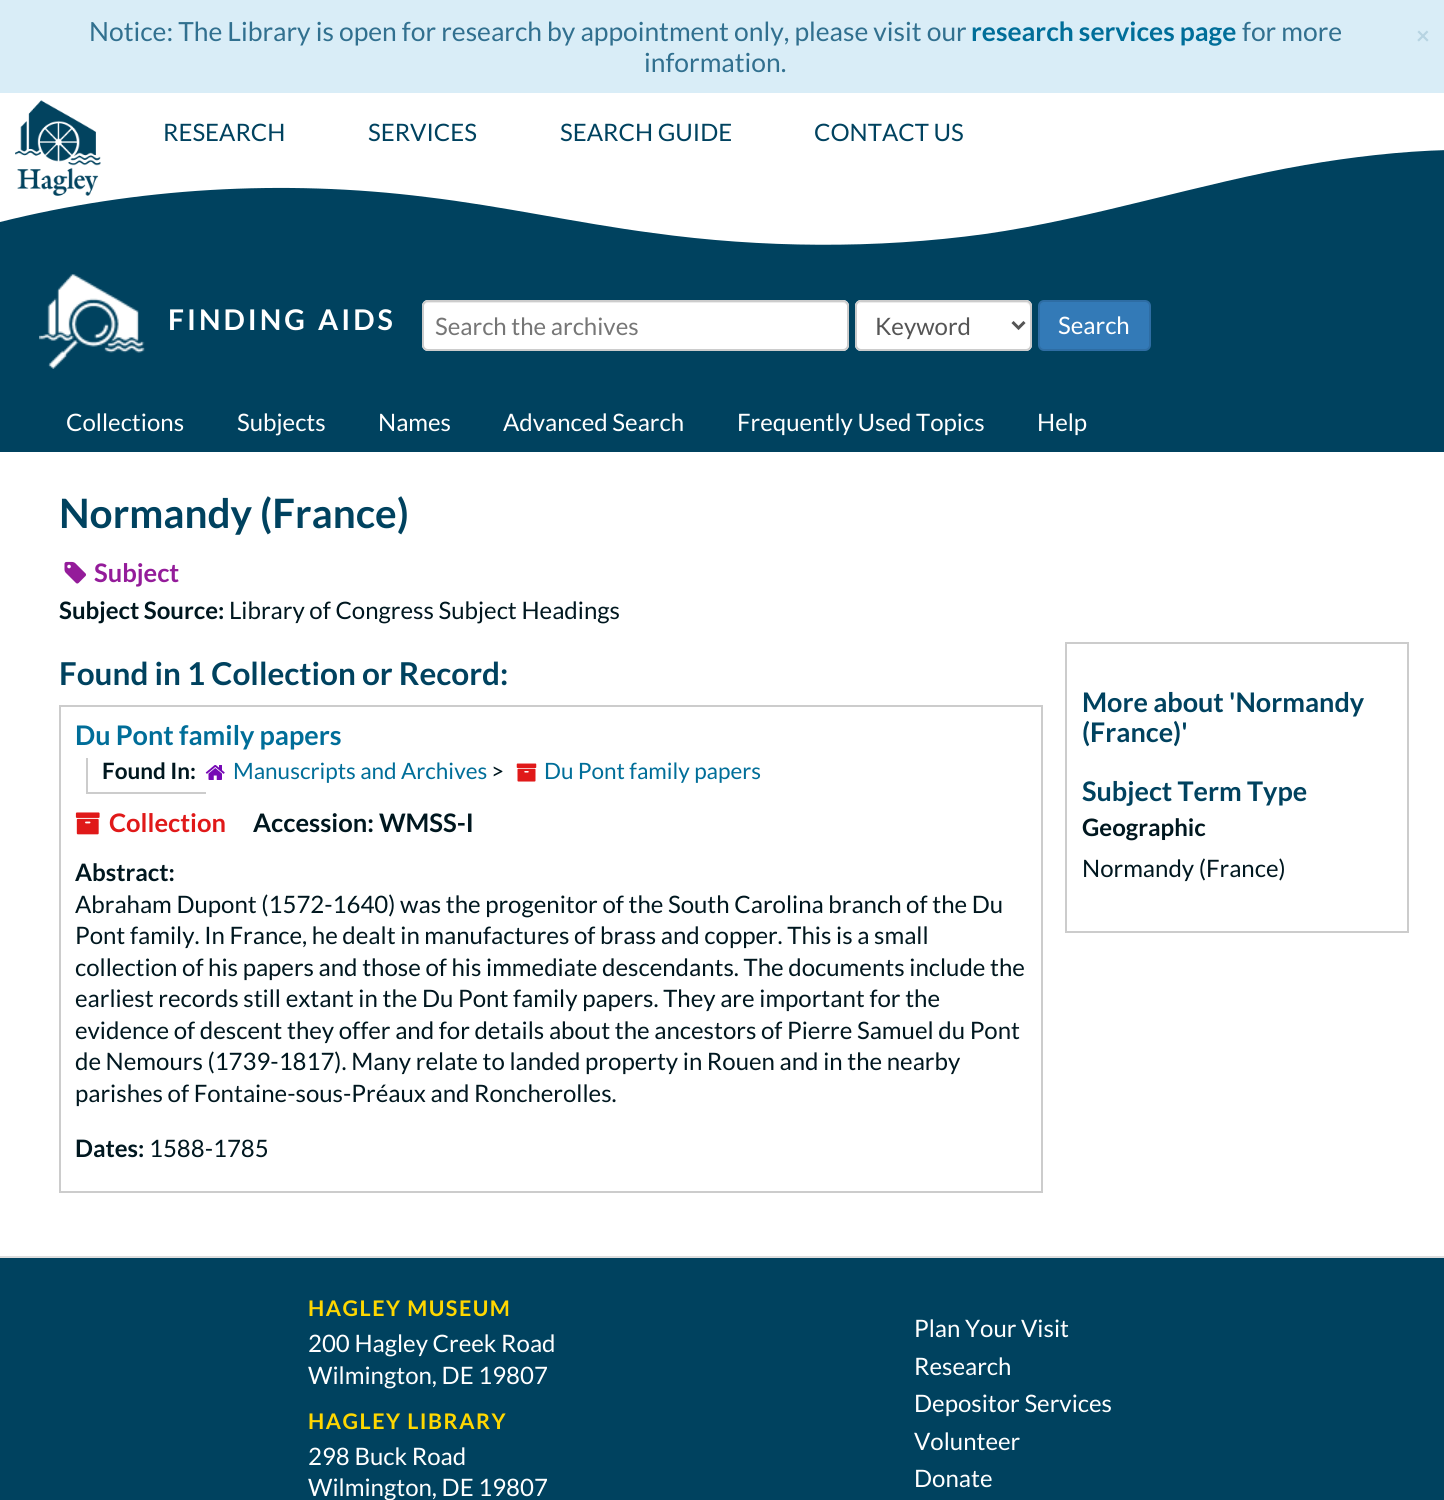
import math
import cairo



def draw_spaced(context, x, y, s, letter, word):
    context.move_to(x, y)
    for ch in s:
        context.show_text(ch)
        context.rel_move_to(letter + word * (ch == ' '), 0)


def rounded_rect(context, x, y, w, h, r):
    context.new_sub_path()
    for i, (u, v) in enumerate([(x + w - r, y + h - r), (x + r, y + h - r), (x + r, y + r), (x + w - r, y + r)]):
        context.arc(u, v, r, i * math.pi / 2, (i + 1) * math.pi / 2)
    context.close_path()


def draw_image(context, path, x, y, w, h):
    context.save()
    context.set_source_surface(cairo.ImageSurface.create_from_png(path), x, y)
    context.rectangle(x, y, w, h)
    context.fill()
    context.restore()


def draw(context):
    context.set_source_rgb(1, 1, 1)
    context.paint()
    context.set_source_rgb(217 / 255, 237 / 255, 247 / 255)
    context.rectangle(0, 0, 1444, 93)
    context.fill()
    context.set_source_rgb(0, 66 / 255, 95 / 255)
    context.new_path()
    context.move_to(426, 197)
    context.curve_to(502, 206, 577, 223, 653, 233)
    context.curve_to(762, 248, 876, 249, 985, 234)
    context.curve_to(1091, 219, 1201, 183, 1305, 165)
    context.curve_to(1398, 149, 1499, 142, 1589, 162)
    context.line_to(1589, 246)
    context.line_to(0, 246)
    context.line_to(0, 222)
    context.curve_to(136, 188, 283, 179, 426, 197)
    context.close_path()
    context.fill()
    draw_image(context, "images/1.png", 15, 100, 86, 96)
    context.rectangle(0, 246, 1444, 206)
    context.fill()
    draw_image(context, "images/2.png", 39, 274, 106, 95)
    context.set_source_rgb(1, 1, 1)
    rounded_rect(context, 422, 300, 427, 51, 6)
    context.fill()
    context.set_source_rgb(236 / 255, 236 / 255, 236 / 255)
    context.new_path()
    context.move_to(428, 303)
    context.line_to(843, 303)
    context.curve_to(845, 303, 848, 305, 848, 308)
    context.curve_to(848, 305, 846, 302, 843, 302)
    context.line_to(428, 302)
    context.curve_to(425, 302, 423, 305, 423, 308)
    context.curve_to(423, 305, 425, 303, 428, 303)
    context.close_path()
    context.fill()
    rounded_rect(context, 423, 301, 425, 49, 5)
    context.set_source_rgb(204 / 255, 204 / 255, 204 / 255)
    context.stroke()
    context.set_source_rgb(1, 1, 1)
    rounded_rect(context, 855, 300, 177, 51, 6)
    context.fill()
    context.set_source_rgb(236 / 255, 236 / 255, 236 / 255)
    context.new_path()
    context.move_to(861, 303)
    context.line_to(1026, 303)
    context.curve_to(1028, 303, 1030, 305, 1030, 308)
    context.line_to(1030, 346)
    context.line_to(1029, 349)
    context.curve_to(1030, 348, 1031, 346, 1031, 345)
    context.line_to(1031, 307)
    context.curve_to(1031, 304, 1029, 302, 1026, 302)
    context.line_to(862, 302)
    context.curve_to(860, 302, 859, 303, 858, 304)
    context.close_path()
    context.fill()
    rounded_rect(context, 856, 301, 175, 49, 5)
    context.set_source_rgb(204 / 255, 204 / 255, 204 / 255)
    context.stroke()
    context.new_path()
    context.move_to(1012.5, 322)
    context.line_to(1018.5, 328)
    context.line_to(1024.5, 322)
    context.set_source_rgb(85 / 255, 85 / 255, 85 / 255)
    context.set_line_width(3)
    context.stroke()
    context.set_source_rgb(51 / 255, 122 / 255, 183 / 255)
    rounded_rect(context, 1039, 301, 111, 49, 5)
    context.fill_preserve()
    context.set_source_rgb(46 / 255, 109 / 255, 164 / 255)
    context.set_line_width(2)
    context.stroke()
    draw_image(context, "images/3.png", 64, 561, 22, 23)
    context.rectangle(60, 706, 982, 486)
    context.set_source_rgb(204 / 255, 204 / 255, 204 / 255)
    context.stroke()
    context.rectangle(86, 792, 120, 2)
    context.fill()
    context.rectangle(86, 758, 2, 36)
    context.fill()
    draw_image(context, "images/4.png", 205, 765, 20, 15)
    draw_image(context, "images/5.png", 516, 763, 21, 19)
    draw_image(context, "images/6.png", 75, 812, 25, 23)
    context.rectangle(1066, 643, 342, 289)
    context.stroke()
    context.set_source_rgb(0, 66 / 255, 95 / 255)
    context.rectangle(0, 1258, 1444, 242)
    context.fill()
    context.set_source_rgb(221 / 255, 221 / 255, 221 / 255)
    context.rectangle(0, 1256, 1444, 2)
    context.fill()
    context.select_font_face("Lato")
    context.set_font_size(26.4)
    context.set_source_rgb(49 / 255, 112 / 255, 143 / 255)
    context.move_to(89, 41)
    context.show_text("Notice: The Library is open for research by appointment only, please visit our")
    context.select_font_face("Lato", cairo.FontSlant.NORMAL, cairo.FontWeight.BOLD)
    context.set_source_rgb(0, 110 / 255, 153 / 255)
    context.move_to(971, 41)
    context.show_text("research services page")
    context.select_font_face("Lato")
    context.set_source_rgb(49 / 255, 112 / 255, 143 / 255)
    context.move_to(1242, 41)
    context.show_text("for more")
    context.move_to(644, 72)
    context.show_text("information.")
    context.select_font_face("Lato", cairo.FontSlant.NORMAL, cairo.FontWeight.BOLD)
    context.set_font_size(24)
    context.set_source_rgb(183 / 255, 212 / 255, 226 / 255)
    context.move_to(1416, 44)
    context.show_text("×")
    context.select_font_face("Lato")
    context.set_source_rgb(0, 66 / 255, 95 / 255)
    context.move_to(163, 141)
    context.show_text("RESEARCH")
    context.move_to(368, 141)
    context.show_text("SERVICES")
    context.move_to(560, 141)
    context.show_text("SEARCH GUIDE")
    context.move_to(814, 141)
    context.show_text("CONTACT US")
    context.select_font_face("Lato", cairo.FontSlant.NORMAL, cairo.FontWeight.BOLD)
    context.set_font_size(28.5)
    context.set_source_rgb(1, 1, 1)
    draw_spaced(context, 168, 330, "FINDING", 3, 0)
    draw_spaced(context, 318, 330, "AIDS", 3, 0)
    context.select_font_face("Lato")
    context.set_font_size(24)
    context.set_source_rgb(118 / 255, 118 / 255, 118 / 255)
    context.move_to(435, 335)
    context.show_text("Search the archives")
    context.set_source_rgb(85 / 255, 85 / 255, 85 / 255)
    context.move_to(875, 335)
    context.show_text("Keyword")
    context.set_source_rgb(1, 1, 1)
    context.move_to(1058, 334)
    context.show_text("Search")
    context.move_to(66, 431)
    context.show_text("Collections")
    context.move_to(237, 431)
    context.show_text("Subjects")
    context.move_to(378, 431)
    context.show_text("Names")
    context.move_to(503, 431)
    context.show_text("Advanced Search")
    context.move_to(737, 431)
    context.show_text("Frequently Used Topics")
    context.move_to(1037, 431)
    context.show_text("Help")
    context.select_font_face("Lato", cairo.FontSlant.NORMAL, cairo.FontWeight.BOLD)
    context.set_font_size(40.5)
    context.set_source_rgb(0, 66 / 255, 95 / 255)
    context.move_to(59, 528)
    context.show_text("Normandy (France)")
    context.set_font_size(25.5)
    context.set_source_rgb(148 / 255, 28 / 255, 154 / 255)
    context.move_to(94, 582)
    context.show_text("Subject")
    context.set_font_size(24)
    context.set_source_rgb(0, 23 / 255, 31 / 255)
    context.move_to(59, 619)
    context.show_text("Subject Source:")
    context.select_font_face("Lato")
    context.move_to(229, 619)
    context.show_text("Library of Congress Subject Headings")
    context.select_font_face("Lato", cairo.FontSlant.NORMAL, cairo.FontWeight.BOLD)
    context.set_font_size(31.5)
    context.set_source_rgb(0, 66 / 255, 95 / 255)
    context.move_to(59, 685)
    context.show_text("Found in 1 Collection or Record:")
    context.set_font_size(27)
    context.set_source_rgb(0, 110 / 255, 153 / 255)
    context.move_to(75, 745)
    context.show_text("Du Pont family papers")
    context.set_font_size(22.5)
    context.set_source_rgb(0, 23 / 255, 31 / 255)
    context.move_to(102, 779)
    context.show_text("Found In:")
    context.select_font_face("Lato")
    context.set_source_rgb(0, 110 / 255, 153 / 255)
    context.move_to(233, 779)
    context.show_text("Manuscripts and Archives")
    context.set_source_rgb(0, 23 / 255, 31 / 255)
    context.move_to(491, 779)
    context.show_text(">")
    context.set_source_rgb(0, 110 / 255, 153 / 255)
    context.move_to(544, 779)
    context.show_text("Du Pont family papers")
    context.select_font_face("Lato", cairo.FontSlant.NORMAL, cairo.FontWeight.BOLD)
    context.set_font_size(25.5)
    context.set_source_rgb(224 / 255, 25 / 255, 25 / 255)
    context.move_to(109, 832)
    context.show_text("Collection")
    context.set_source_rgb(0, 23 / 255, 31 / 255)
    context.move_to(253, 832)
    context.show_text("Accession: WMSS-I")
    context.set_font_size(24)
    context.move_to(75, 881)
    context.show_text("Abstract:")
    context.select_font_face("Lato")
    context.move_to(75, 913)
    context.show_text("Abraham Dupont (1572-1640) was the progenitor of the South Carolina branch of the Du")
    context.move_to(75, 944)
    context.show_text("Pont family. In France, he dealt in manufactures of brass and copper. This is a small")
    context.move_to(75, 976)
    context.show_text("collection of his papers and those of his immediate descendants. The documents include the")
    context.move_to(75, 1007)
    context.show_text("earliest records still extant in the Du Pont family papers. They are important for the")
    context.move_to(75, 1039)
    context.show_text("evidence of descent they offer and for details about the ancestors of Pierre Samuel du Pont")
    context.move_to(75, 1070)
    context.show_text("de Nemours (1739-1817). Many relate to landed property in Rouen and in the nearby")
    context.move_to(75, 1102)
    context.show_text("parishes of Fontaine-sous-Préaux and Roncherolles.")
    context.select_font_face("Lato", cairo.FontSlant.NORMAL, cairo.FontWeight.BOLD)
    context.move_to(75, 1157)
    context.show_text("Dates:")
    context.select_font_face("Lato")
    context.move_to(149, 1157)
    context.show_text("1588-1785")
    context.select_font_face("Lato", cairo.FontSlant.NORMAL, cairo.FontWeight.BOLD)
    context.set_font_size(27)
    context.set_source_rgb(0, 66 / 255, 95 / 255)
    context.move_to(1082, 712)
    context.show_text("More about 'Normandy")
    context.move_to(1082, 742)
    context.show_text("(France)'")
    context.move_to(1082, 801)
    context.show_text("Subject Term Type")
    context.set_font_size(24)
    context.set_source_rgb(0, 23 / 255, 31 / 255)
    context.move_to(1082, 836)
    context.show_text("Geographic")
    context.select_font_face("Lato")
    context.move_to(1082, 877)
    context.show_text("Normandy (France)")
    context.select_font_face("Lato", cairo.FontSlant.NORMAL, cairo.FontWeight.BOLD)
    context.set_font_size(21.5)
    context.set_source_rgb(1, 215 / 255, 0)
    draw_spaced(context, 308, 1316, "HAGLEY MUSEUM", 1.5, 0)
    context.select_font_face("Lato")
    context.set_font_size(24)
    context.set_source_rgb(1, 1, 1)
    context.move_to(308, 1352)
    context.show_text("200 Hagley Creek Road")
    context.move_to(308, 1384)
    context.show_text("Wilmington, DE 19807")
    context.select_font_face("Lato", cairo.FontSlant.NORMAL, cairo.FontWeight.BOLD)
    context.set_font_size(21.5)
    context.set_source_rgb(1, 215 / 255, 0)
    draw_spaced(context, 308, 1429, "HAGLEY LIBRARY", 1.5, 0)
    context.select_font_face("Lato")
    context.set_font_size(24)
    context.set_source_rgb(1, 1, 1)
    context.move_to(308, 1465)
    context.show_text("298 Buck Road")
    context.move_to(308, 1496)
    context.show_text("Wilmington, DE 19807")
    context.move_to(914, 1337)
    context.show_text("Plan Your Visit")
    context.move_to(914, 1375)
    context.show_text("Research")
    context.move_to(914, 1412)
    context.show_text("Depositor Services")
    context.move_to(914, 1450)
    context.show_text("Volunteer")
    context.move_to(914, 1487)
    context.show_text("Donate")


surface = cairo.ImageSurface(cairo.Format.RGB24, 1444, 1500)
context = cairo.Context(surface)
options = cairo.FontOptions()
options.set_hint_metrics(cairo.HintMetrics.OFF)
options.set_hint_style(cairo.HintStyle.NONE)
context.set_font_options(options)
context.set_miter_limit(4)
draw(context)
surface.write_to_png("out.png")
